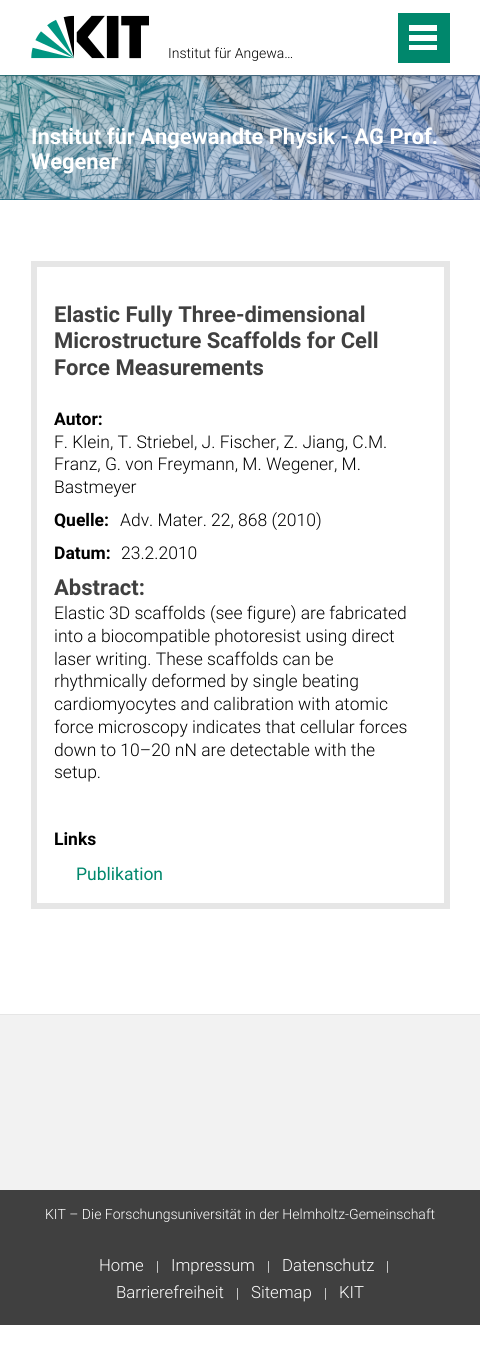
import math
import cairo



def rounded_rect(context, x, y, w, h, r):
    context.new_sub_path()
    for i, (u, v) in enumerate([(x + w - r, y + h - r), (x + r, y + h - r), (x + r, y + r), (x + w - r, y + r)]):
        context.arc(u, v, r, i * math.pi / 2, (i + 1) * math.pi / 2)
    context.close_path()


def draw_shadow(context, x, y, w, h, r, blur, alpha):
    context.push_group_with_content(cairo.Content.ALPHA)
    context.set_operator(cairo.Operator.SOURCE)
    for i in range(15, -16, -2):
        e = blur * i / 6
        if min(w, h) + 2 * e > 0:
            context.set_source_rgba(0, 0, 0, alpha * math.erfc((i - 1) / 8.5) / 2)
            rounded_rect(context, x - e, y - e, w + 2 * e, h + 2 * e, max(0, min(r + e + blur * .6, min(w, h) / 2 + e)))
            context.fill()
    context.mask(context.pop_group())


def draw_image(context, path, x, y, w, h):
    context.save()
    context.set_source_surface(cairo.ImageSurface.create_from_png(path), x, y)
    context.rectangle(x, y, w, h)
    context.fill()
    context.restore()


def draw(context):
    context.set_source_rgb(1, 1, 1)
    context.paint()
    draw_image(context, "images/2.png", 0, 75, 480, 125)
    context.save()
    context.rectangle(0, 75, 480, 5)
    context.clip()
    context.set_source_rgb(64 / 255, 64 / 255, 64 / 255)
    draw_shadow(context, 0, 0, 480, 75, 0, 3, 0.5)
    context.restore()
    draw_image(context, "images/1.png", 31, 15, 118, 44)
    context.set_source_rgb(0, 135 / 255, 108 / 255)
    context.rectangle(398, 13, 52, 50)
    context.fill()
    context.set_source_rgb(1, 1, 1)
    context.rectangle(409, 45, 28, 5)
    context.fill()
    context.rectangle(409, 35, 28, 6)
    context.fill()
    context.rectangle(409, 25, 28, 6)
    context.fill()
    context.rectangle(34, 264, 413, 642)
    context.set_source_rgb(230 / 255, 230 / 255, 230 / 255)
    context.set_line_width(6)
    context.stroke()
    context.set_source_rgb(242 / 255, 242 / 255, 242 / 255)
    context.rectangle(0, 1015, 480, 175)
    context.fill()
    context.set_source_rgb(230 / 255, 230 / 255, 230 / 255)
    context.rectangle(0, 1014, 480, 1)
    context.fill()
    context.set_source_rgb(64 / 255, 64 / 255, 64 / 255)
    context.rectangle(0, 1190, 480, 135)
    context.fill()
    context.select_font_face("Roboto Light")
    context.set_font_size(14)
    context.set_source_rgb(0, 0, 0)
    context.move_to(168, 58)
    context.show_text("Institut für Angewa…")
    context.select_font_face("Roboto", cairo.FontSlant.NORMAL, cairo.FontWeight.BOLD)
    context.set_font_size(21.9)
    context.set_source_rgb(1, 1, 1)
    context.move_to(31, 144)
    context.show_text("Institut für Angewandte Physik - AG Prof.")
    context.move_to(31, 169)
    context.show_text("Wegener")
    context.set_font_size(22)
    context.set_source_rgb(64 / 255, 64 / 255, 64 / 255)
    context.move_to(54, 322)
    context.show_text("Elastic Fully Three-dimensional")
    context.move_to(54, 348)
    context.show_text("Microstructure Scaffolds for Cell")
    context.move_to(54, 375)
    context.show_text("Force Measurements")
    context.set_font_size(17.5)
    context.set_source_rgb(0, 0, 0)
    context.move_to(54, 425)
    context.show_text("Autor:")
    context.select_font_face("Roboto Light")
    context.move_to(54, 448)
    context.show_text("F. Klein, T. Striebel, J. Fischer, Z. Jiang, C.M.")
    context.move_to(54, 470)
    context.show_text("Franz, G. von Freymann, M. Wegener, M.")
    context.move_to(54, 493)
    context.show_text("Bastmeyer")
    context.select_font_face("Roboto", cairo.FontSlant.NORMAL, cairo.FontWeight.BOLD)
    context.move_to(54, 526)
    context.show_text("Quelle:")
    context.select_font_face("Roboto Light")
    context.move_to(120, 526)
    context.show_text("Adv. Mater. 22, 868 (2010)")
    context.select_font_face("Roboto", cairo.FontSlant.NORMAL, cairo.FontWeight.BOLD)
    context.move_to(54, 559)
    context.show_text("Datum:")
    context.select_font_face("Roboto Light")
    context.move_to(121, 559)
    context.show_text("23.2.2010")
    context.select_font_face("Roboto", cairo.FontSlant.NORMAL, cairo.FontWeight.BOLD)
    context.set_font_size(22)
    context.set_source_rgb(64 / 255, 64 / 255, 64 / 255)
    context.move_to(54, 595)
    context.show_text("Abstract:")
    context.select_font_face("Roboto Light")
    context.set_font_size(17.5)
    context.set_source_rgb(0, 0, 0)
    context.move_to(54, 619)
    context.show_text("Elastic 3D scaffolds (see figure) are fabricated")
    context.move_to(54, 642)
    context.show_text("into a biocompatible photoresist using direct")
    context.move_to(54, 665)
    context.show_text("laser writing. These scaffolds can be")
    context.move_to(54, 687)
    context.show_text("rhythmically deformed by single beating")
    context.move_to(54, 710)
    context.show_text("cardiomyocytes and calibration with atomic")
    context.move_to(54, 733)
    context.show_text("force microscopy indicates that cellular forces")
    context.move_to(54, 756)
    context.show_text("down to 10–20 nN are detectable with the")
    context.move_to(54, 778)
    context.show_text("setup.")
    context.select_font_face("Roboto", cairo.FontSlant.NORMAL, cairo.FontWeight.BOLD)
    context.move_to(54, 845)
    context.show_text("Links")
    context.select_font_face("Roboto")
    context.set_source_rgb(0, 135 / 255, 108 / 255)
    context.move_to(76, 880)
    context.show_text("Publikation")
    context.select_font_face("Roboto Light")
    context.set_font_size(14)
    context.set_source_rgb(1, 1, 1)
    context.move_to(45, 1219)
    context.show_text("KIT – Die Forschungsuniversität in der Helmholtz-Gemeinschaft")
    context.set_font_size(16.75)
    context.move_to(99, 1271)
    context.show_text("Home")
    context.set_font_size(14)
    context.move_to(156, 1271)
    context.show_text("|")
    context.set_font_size(16.75)
    context.move_to(171, 1271)
    context.show_text("Impressum")
    context.set_font_size(14)
    context.move_to(267, 1271)
    context.show_text("|")
    context.set_font_size(16.75)
    context.move_to(282, 1271)
    context.show_text("Datenschutz")
    context.set_font_size(14)
    context.move_to(386, 1271)
    context.show_text("|")
    context.set_font_size(16.75)
    context.move_to(116, 1298)
    context.show_text("Barrierefreiheit")
    context.set_font_size(14)
    context.move_to(236, 1298)
    context.show_text("|")
    context.set_font_size(16.75)
    context.move_to(251, 1298)
    context.show_text("Sitemap")
    context.set_font_size(14)
    context.move_to(324, 1298)
    context.show_text("|")
    context.set_font_size(16.75)
    context.move_to(339, 1298)
    context.show_text("KIT")


surface = cairo.ImageSurface(cairo.Format.RGB24, 480, 1360)
context = cairo.Context(surface)
options = cairo.FontOptions()
options.set_hint_metrics(cairo.HintMetrics.OFF)
options.set_hint_style(cairo.HintStyle.NONE)
context.set_font_options(options)
context.set_miter_limit(4)
draw(context)
surface.write_to_png("out.png")
